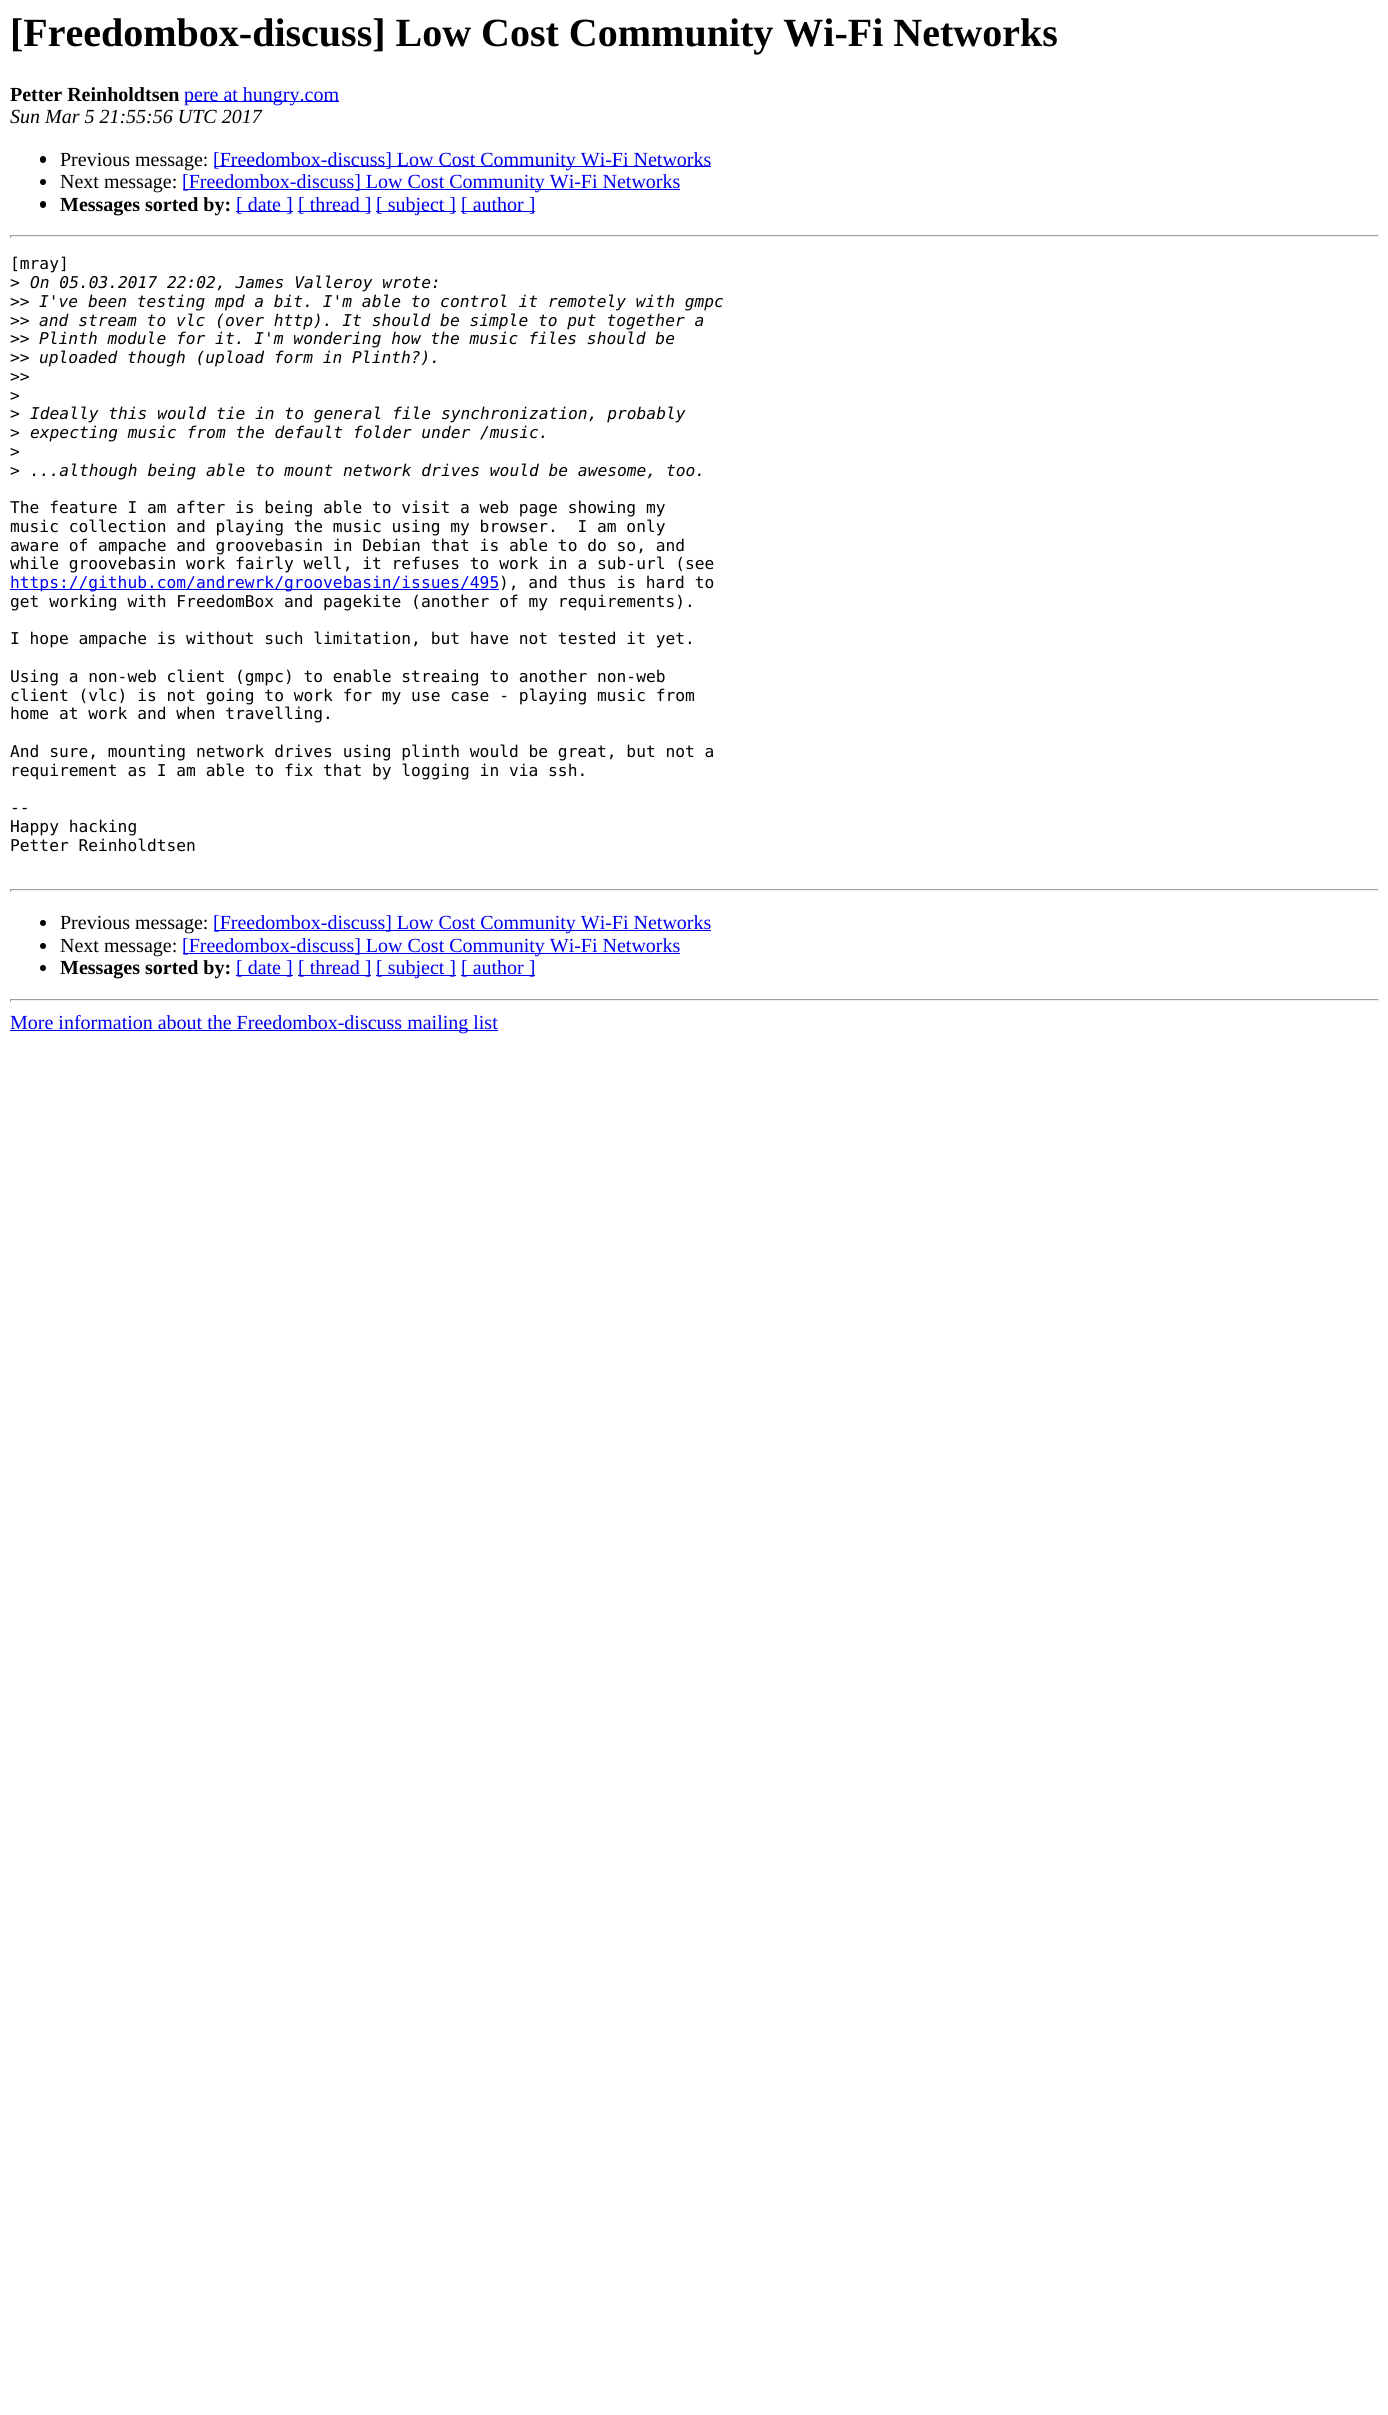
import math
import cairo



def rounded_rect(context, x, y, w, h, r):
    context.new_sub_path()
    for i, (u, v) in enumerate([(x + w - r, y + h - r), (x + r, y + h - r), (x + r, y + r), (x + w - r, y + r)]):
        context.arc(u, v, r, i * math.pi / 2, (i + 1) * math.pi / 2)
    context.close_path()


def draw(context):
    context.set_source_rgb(1, 1, 1)
    context.paint()
    context.set_source_rgb(0, 0, 238 / 255)
    context.rectangle(185, 101, 154, 1)
    context.fill()
    context.set_source_rgb(0, 0, 0)
    rounded_rect(context, 40, 156, 6, 7, 3)
    context.fill()
    context.set_source_rgb(0, 0, 238 / 255)
    context.rectangle(214, 166, 497, 1)
    context.fill()
    context.set_source_rgb(0, 0, 0)
    context.arc(43, 182, 3, 0, 2 * math.pi)
    context.fill()
    context.set_source_rgb(0, 0, 238 / 255)
    context.rectangle(183, 189, 497, 1)
    context.fill()
    context.set_source_rgb(0, 0, 0)
    rounded_rect(context, 40, 201, 6, 7, 3)
    context.fill()
    context.set_source_rgb(0, 0, 238 / 255)
    context.rectangle(236, 211, 57, 1)
    context.fill()
    context.rectangle(298, 211, 73, 1)
    context.fill()
    context.rectangle(376, 211, 80, 1)
    context.fill()
    context.rectangle(461, 211, 74, 1)
    context.fill()
    context.set_source_rgb(159 / 255, 159 / 255, 159 / 255)
    context.rectangle(10, 235, 1369, 1)
    context.fill()
    context.set_source_rgb(238 / 255, 238 / 255, 238 / 255)
    context.rectangle(1378, 235, 1, 3)
    context.fill()
    context.rectangle(10, 236, 1369, 1)
    context.fill()
    context.set_source_rgb(159 / 255, 159 / 255, 159 / 255)
    context.rectangle(10, 235, 1, 3)
    context.fill()
    context.set_source_rgb(0, 0, 238 / 255)
    context.rectangle(10, 589, 489, 1)
    context.fill()
    context.set_source_rgb(159 / 255, 159 / 255, 159 / 255)
    context.rectangle(10, 889, 1369, 1)
    context.fill()
    context.set_source_rgb(238 / 255, 238 / 255, 238 / 255)
    context.rectangle(1378, 889, 1, 3)
    context.fill()
    context.rectangle(10, 890, 1369, 1)
    context.fill()
    context.set_source_rgb(159 / 255, 159 / 255, 159 / 255)
    context.rectangle(10, 889, 1, 3)
    context.fill()
    context.set_source_rgb(0, 0, 0)
    context.arc(43, 923, 3, 0, 2 * math.pi)
    context.fill()
    context.set_source_rgb(0, 0, 238 / 255)
    context.rectangle(214, 930, 497, 1)
    context.fill()
    context.set_source_rgb(0, 0, 0)
    context.arc(43, 946, 3, 0, 2 * math.pi)
    context.fill()
    context.set_source_rgb(0, 0, 238 / 255)
    context.rectangle(183, 953, 497, 1)
    context.fill()
    context.set_source_rgb(0, 0, 0)
    context.arc(43, 968, 3, 0, 2 * math.pi)
    context.fill()
    context.set_source_rgb(0, 0, 238 / 255)
    context.rectangle(236, 975, 57, 1)
    context.fill()
    context.rectangle(298, 975, 73, 1)
    context.fill()
    context.rectangle(376, 975, 80, 1)
    context.fill()
    context.rectangle(461, 975, 74, 1)
    context.fill()
    context.set_source_rgb(159 / 255, 159 / 255, 159 / 255)
    context.rectangle(10, 999, 1369, 1)
    context.fill()
    context.set_source_rgb(238 / 255, 238 / 255, 238 / 255)
    context.rectangle(1378, 999, 1, 3)
    context.fill()
    context.rectangle(10, 1000, 1369, 1)
    context.fill()
    context.set_source_rgb(159 / 255, 159 / 255, 159 / 255)
    context.rectangle(10, 999, 1, 3)
    context.fill()
    context.set_source_rgb(0, 0, 238 / 255)
    context.rectangle(10, 1030, 488, 1)
    context.fill()
    context.select_font_face("Liberation Serif", cairo.FontSlant.NORMAL, cairo.FontWeight.BOLD)
    context.set_font_size(40)
    context.set_source_rgb(0, 0, 0)
    context.move_to(10, 46)
    context.show_text("[Freedombox-discuss] Low Cost Community Wi-Fi Networks")
    context.set_font_size(20)
    context.move_to(10, 101)
    context.show_text("Petter Reinholdtsen")
    context.select_font_face("Liberation Serif")
    context.set_source_rgb(0, 0, 238 / 255)
    context.move_to(184, 101)
    context.show_text("pere at hungry.com")
    context.select_font_face("Liberation Serif", cairo.FontSlant.ITALIC)
    context.set_source_rgb(0, 0, 0)
    context.move_to(10, 123)
    context.show_text("Sun Mar 5 21:55:56 UTC 2017")
    context.select_font_face("Liberation Serif")
    context.move_to(60, 166)
    context.show_text("Previous message:")
    context.set_source_rgb(0, 0, 238 / 255)
    context.move_to(213, 166)
    context.show_text("[Freedombox-discuss] Low Cost Community Wi-Fi Networks")
    context.set_source_rgb(0, 0, 0)
    context.move_to(60, 188)
    context.show_text("Next message:")
    context.set_source_rgb(0, 0, 238 / 255)
    context.move_to(182, 188)
    context.show_text("[Freedombox-discuss] Low Cost Community Wi-Fi Networks")
    context.select_font_face("Liberation Serif", cairo.FontSlant.NORMAL, cairo.FontWeight.BOLD)
    context.set_source_rgb(0, 0, 0)
    context.move_to(60, 211)
    context.show_text("Messages sorted by:")
    context.select_font_face("Liberation Serif")
    context.set_source_rgb(0, 0, 238 / 255)
    context.move_to(236, 211)
    context.show_text("[ date ]")
    context.move_to(298, 211)
    context.show_text("[ thread ]")
    context.move_to(376, 211)
    context.show_text("[ subject ]")
    context.move_to(461, 211)
    context.show_text("[ author ]")
    context.select_font_face("DejaVu Sans Mono")
    context.set_font_size(16.25)
    context.set_source_rgb(0, 0, 0)
    context.move_to(10, 269)
    context.show_text("[mray]")
    context.move_to(10, 288)
    context.show_text(">")
    context.select_font_face("DejaVu Sans Mono", cairo.FontSlant.ITALIC)
    context.move_to(30, 288)
    context.show_text("On 05.03.2017 22:02, James Valleroy wrote:")
    context.select_font_face("DejaVu Sans Mono")
    context.move_to(10, 307)
    context.show_text(">>")
    context.select_font_face("DejaVu Sans Mono", cairo.FontSlant.ITALIC)
    context.move_to(39, 307)
    context.show_text("I've been testing mpd a bit. I'm able to control it remotely with gmpc")
    context.select_font_face("DejaVu Sans Mono")
    context.move_to(10, 326)
    context.show_text(">>")
    context.select_font_face("DejaVu Sans Mono", cairo.FontSlant.ITALIC)
    context.move_to(39, 326)
    context.show_text("and stream to vlc (over http). It should be simple to put together a")
    context.select_font_face("DejaVu Sans Mono")
    context.move_to(10, 344)
    context.show_text(">>")
    context.select_font_face("DejaVu Sans Mono", cairo.FontSlant.ITALIC)
    context.move_to(39, 344)
    context.show_text("Plinth module for it. I'm wondering how the music files should be")
    context.select_font_face("DejaVu Sans Mono")
    context.move_to(10, 363)
    context.show_text(">>")
    context.select_font_face("DejaVu Sans Mono", cairo.FontSlant.ITALIC)
    context.move_to(39, 363)
    context.show_text("uploaded though (upload form in Plinth?).")
    context.select_font_face("DejaVu Sans Mono")
    context.move_to(10, 382)
    context.show_text(">>")
    context.move_to(10, 401)
    context.show_text(">")
    context.move_to(10, 419)
    context.show_text(">")
    context.select_font_face("DejaVu Sans Mono", cairo.FontSlant.ITALIC)
    context.move_to(30, 419)
    context.show_text("Ideally this would tie in to general file synchronization, probably")
    context.select_font_face("DejaVu Sans Mono")
    context.move_to(10, 438)
    context.show_text(">")
    context.select_font_face("DejaVu Sans Mono", cairo.FontSlant.ITALIC)
    context.move_to(30, 438)
    context.show_text("expecting music from the default folder under /music.")
    context.select_font_face("DejaVu Sans Mono")
    context.move_to(10, 457)
    context.show_text(">")
    context.move_to(10, 476)
    context.show_text(">")
    context.select_font_face("DejaVu Sans Mono", cairo.FontSlant.ITALIC)
    context.move_to(30, 476)
    context.show_text("...although being able to mount network drives would be awesome, too.")
    context.select_font_face("DejaVu Sans Mono")
    context.move_to(10, 513)
    context.show_text("The feature I am after is being able to visit a web page showing my")
    context.move_to(10, 532)
    context.show_text("music collection and playing the music using my browser.  I am only")
    context.move_to(10, 551)
    context.show_text("aware of ampache and groovebasin in Debian that is able to do so, and")
    context.move_to(10, 569)
    context.show_text("while groovebasin work fairly well, it refuses to work in a sub-url (see")
    context.set_source_rgb(0, 0, 238 / 255)
    context.move_to(10, 588)
    context.show_text("https://github.com/andrewrk/groovebasin/issues/495")
    context.set_source_rgb(0, 0, 0)
    context.move_to(499, 588)
    context.show_text("), and thus is hard to")
    context.move_to(10, 607)
    context.show_text("get working with FreedomBox and pagekite (another of my requirements).")
    context.move_to(10, 644)
    context.show_text("I hope ampache is without such limitation, but have not tested it yet.")
    context.move_to(10, 682)
    context.show_text("Using a non-web client (gmpc) to enable streaing to another non-web")
    context.move_to(10, 701)
    context.show_text("client (vlc) is not going to work for my use case - playing music from")
    context.move_to(10, 719)
    context.show_text("home at work and when travelling.")
    context.move_to(10, 757)
    context.show_text("And sure, mounting network drives using plinth would be great, but not a")
    context.move_to(10, 776)
    context.show_text("requirement as I am able to fix that by logging in via ssh.")
    context.move_to(10, 813)
    context.show_text("--")
    context.move_to(10, 832)
    context.show_text("Happy hacking")
    context.move_to(10, 851)
    context.show_text("Petter Reinholdtsen")
    context.select_font_face("Liberation Serif")
    context.set_font_size(20)
    context.move_to(60, 929)
    context.show_text("Previous message:")
    context.set_source_rgb(0, 0, 238 / 255)
    context.move_to(213, 929)
    context.show_text("[Freedombox-discuss] Low Cost Community Wi-Fi Networks")
    context.set_source_rgb(0, 0, 0)
    context.move_to(60, 952)
    context.show_text("Next message:")
    context.set_source_rgb(0, 0, 238 / 255)
    context.move_to(182, 952)
    context.show_text("[Freedombox-discuss] Low Cost Community Wi-Fi Networks")
    context.select_font_face("Liberation Serif", cairo.FontSlant.NORMAL, cairo.FontWeight.BOLD)
    context.set_source_rgb(0, 0, 0)
    context.move_to(60, 974)
    context.show_text("Messages sorted by:")
    context.select_font_face("Liberation Serif")
    context.set_source_rgb(0, 0, 238 / 255)
    context.move_to(236, 974)
    context.show_text("[ date ]")
    context.move_to(298, 974)
    context.show_text("[ thread ]")
    context.move_to(376, 974)
    context.show_text("[ subject ]")
    context.move_to(461, 974)
    context.show_text("[ author ]")
    context.move_to(10, 1029)
    context.show_text("More information about the Freedombox-discuss mailing list")


surface = cairo.ImageSurface(cairo.Format.RGB24, 1388, 2415)
context = cairo.Context(surface)
options = cairo.FontOptions()
options.set_hint_metrics(cairo.HintMetrics.OFF)
options.set_hint_style(cairo.HintStyle.NONE)
context.set_font_options(options)
context.set_miter_limit(4)
draw(context)
surface.write_to_png("out.png")
